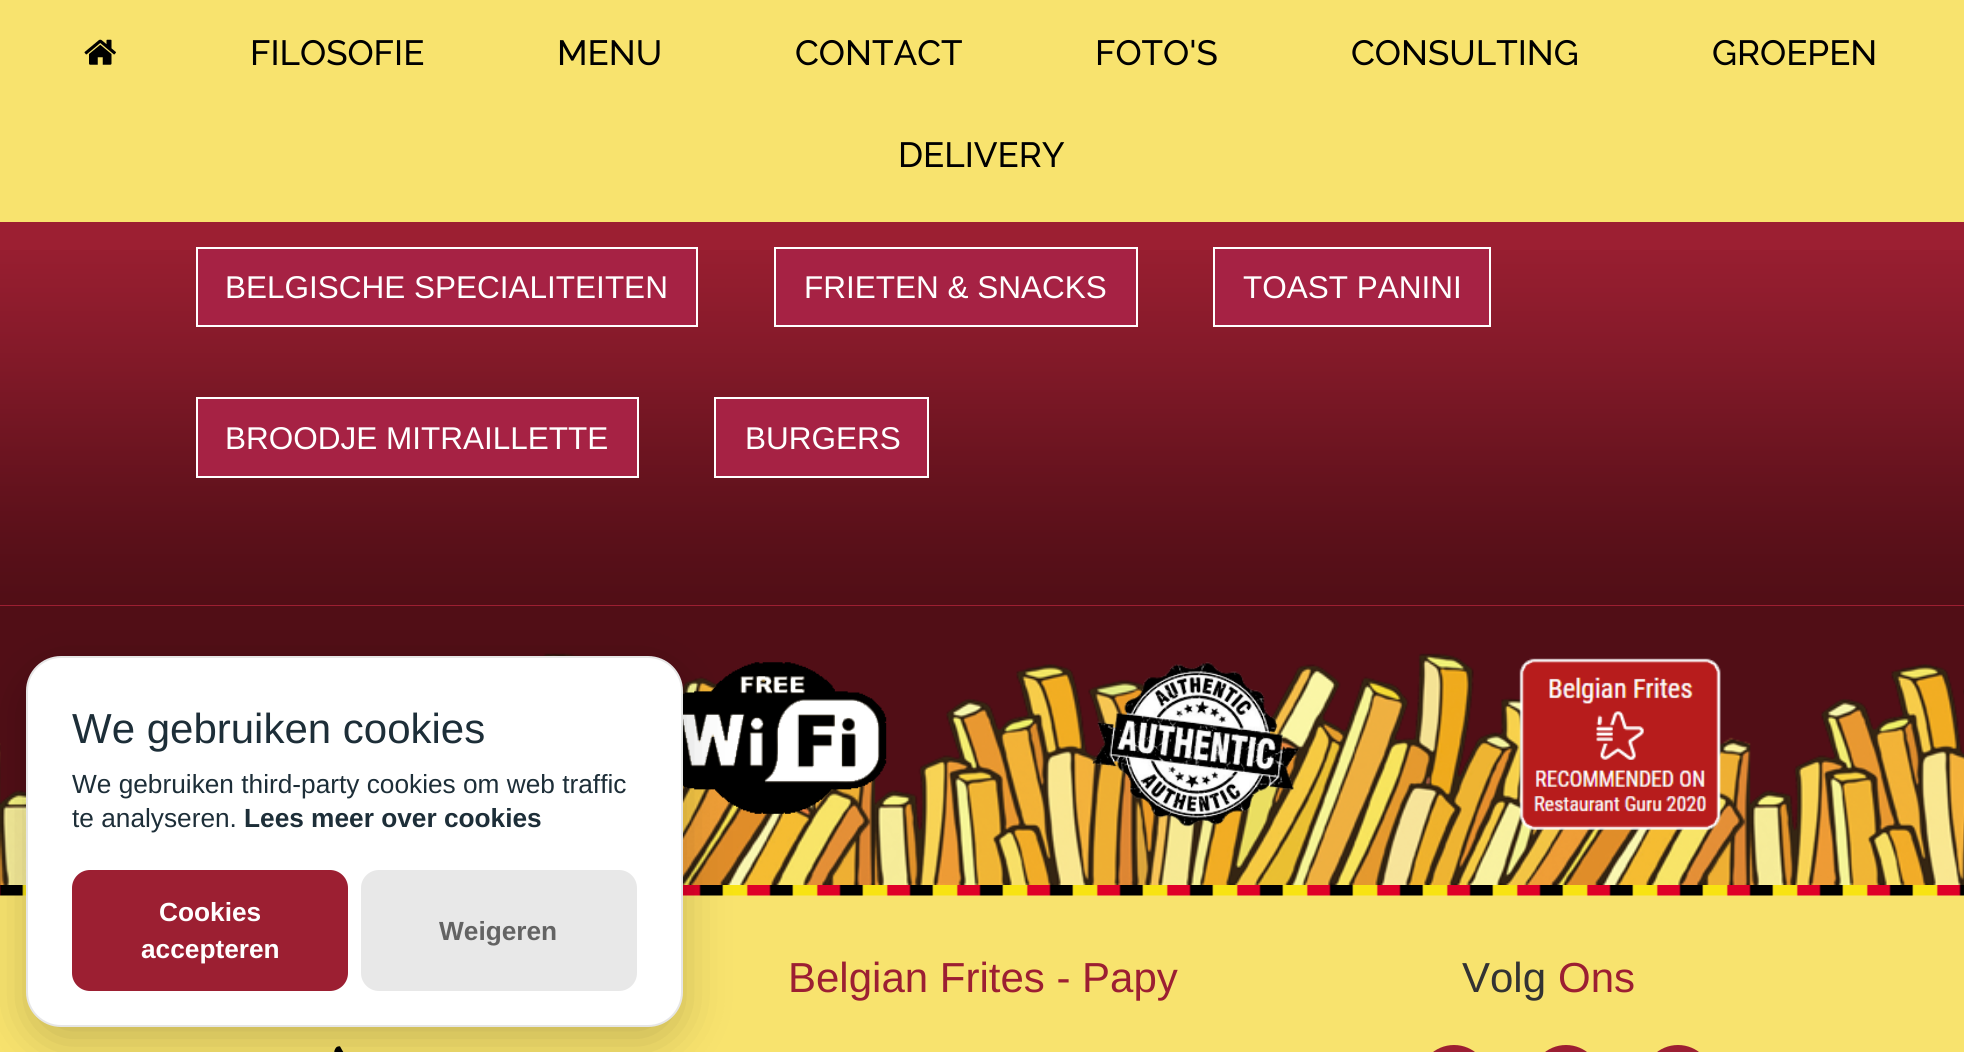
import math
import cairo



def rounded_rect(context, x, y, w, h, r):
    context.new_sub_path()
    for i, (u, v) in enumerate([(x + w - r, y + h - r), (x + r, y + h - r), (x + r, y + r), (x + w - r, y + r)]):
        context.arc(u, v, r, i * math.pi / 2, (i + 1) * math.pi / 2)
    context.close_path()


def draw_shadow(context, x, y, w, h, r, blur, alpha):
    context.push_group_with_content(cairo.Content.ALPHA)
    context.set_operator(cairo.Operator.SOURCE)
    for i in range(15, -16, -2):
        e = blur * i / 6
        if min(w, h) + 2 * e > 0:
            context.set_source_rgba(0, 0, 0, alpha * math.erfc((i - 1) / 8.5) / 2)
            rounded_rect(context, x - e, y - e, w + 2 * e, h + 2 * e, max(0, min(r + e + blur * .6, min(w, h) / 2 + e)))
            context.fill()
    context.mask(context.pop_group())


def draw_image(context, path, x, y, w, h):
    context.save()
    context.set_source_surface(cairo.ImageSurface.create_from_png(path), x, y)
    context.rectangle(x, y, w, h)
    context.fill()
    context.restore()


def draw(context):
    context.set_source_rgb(81 / 255, 14 / 255, 22 / 255)
    context.paint()
    context.set_source_rgb(248 / 255, 227 / 255, 110 / 255)
    context.rectangle(0, 0, 1964, 222)
    context.fill()
    draw_image(context, "images/1.png", 84, 39, 32, 26)
    context.set_source_rgb(156 / 255, 31 / 255, 50 / 255)
    context.rectangle(0, 222, 1964, 384)
    context.fill()
    draw_image(context, "images/2.png", 0, 250, 1964, 355)
    context.set_source_rgb(166 / 255, 34 / 255, 68 / 255)
    context.rectangle(197, 248, 500, 78)
    context.fill_preserve()
    context.set_source_rgb(1, 1, 1)
    context.stroke()
    context.set_source_rgb(166 / 255, 34 / 255, 68 / 255)
    context.rectangle(775, 248, 362, 78)
    context.fill_preserve()
    context.set_source_rgb(1, 1, 1)
    context.stroke()
    context.set_source_rgb(166 / 255, 34 / 255, 68 / 255)
    context.rectangle(1214, 248, 276, 78)
    context.fill_preserve()
    context.set_source_rgb(1, 1, 1)
    context.stroke()
    context.set_source_rgb(166 / 255, 34 / 255, 68 / 255)
    context.rectangle(197, 398, 441, 79)
    context.fill_preserve()
    context.set_source_rgb(1, 1, 1)
    context.stroke()
    context.set_source_rgb(166 / 255, 34 / 255, 68 / 255)
    context.rectangle(715, 398, 213, 79)
    context.fill_preserve()
    context.set_source_rgb(1, 1, 1)
    context.stroke()
    draw_image(context, "images/3.png", 0, 653, 1964, 232)
    draw_image(context, "images/4.png", 683, 662, 204, 152)
    draw_image(context, "images/5.png", 1092, 662, 207, 165)
    draw_image(context, "images/6.png", 1519, 658, 202, 172)
    context.set_source_rgb(248 / 255, 227 / 255, 110 / 255)
    context.rectangle(0, 895, 1964, 157)
    context.fill()
    draw_image(context, "images/7.png", 0, 885, 1964, 11)
    draw_image(context, "images/8.png", 334, 1046, 10, 6)
    context.set_source_rgb(2 / 255, 2 / 255, 3 / 255)
    draw_shadow(context, 26, 672, 657, 371, 35, 23, 0.2)
    context.set_source_rgb(1, 1, 1)
    rounded_rect(context, 27, 657, 655, 369, 34)
    context.fill_preserve()
    context.set_source_rgb(230 / 255, 230 / 255, 230 / 255)
    context.stroke()
    context.set_source_rgb(156 / 255, 31 / 255, 50 / 255)
    rounded_rect(context, 72, 870, 276, 121, 18)
    context.fill()
    context.set_source_rgb(232 / 255, 232 / 255, 232 / 255)
    rounded_rect(context, 361, 870, 276, 121, 18)
    context.fill()
    context.set_source_rgb(156 / 255, 31 / 255, 50 / 255)
    rounded_rect(context, 1419, 1045, 70, 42, 35)
    context.fill()
    rounded_rect(context, 1531, 1045, 70, 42, 35)
    context.fill()
    rounded_rect(context, 1643, 1045, 70, 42, 35)
    context.fill()
    context.select_font_face("Raleway Medium")
    context.set_font_size(35)
    context.set_source_rgb(0, 0, 0)
    context.move_to(250, 65)
    context.show_text("FILOSOFIE")
    context.move_to(557, 65)
    context.show_text("MENU")
    context.move_to(795, 65)
    context.show_text("CONTACT")
    context.move_to(1095, 65)
    context.show_text("FOTO'S")
    context.move_to(1351, 65)
    context.show_text("CONSULTING")
    context.move_to(1712, 65)
    context.show_text("GROEPEN")
    context.move_to(898, 167)
    context.show_text("DELIVERY")
    context.select_font_face("Liberation Sans")
    context.set_font_size(31.5)
    context.set_source_rgb(1, 1, 1)
    context.move_to(225, 298)
    context.show_text("BELGISCHE SPECIALITEITEN")
    context.move_to(804, 298)
    context.show_text("FRIETEN & SNACKS")
    context.move_to(1243, 298)
    context.show_text("TOAST PANINI")
    context.move_to(225, 449)
    context.show_text("BROODJE MITRAILLETTE")
    context.move_to(745, 449)
    context.show_text("BURGERS")
    context.set_font_size(42)
    context.set_source_rgb(29 / 255, 46 / 255, 56 / 255)
    context.move_to(72, 743)
    context.show_text("We gebruiken cookies")
    context.set_font_size(26.25)
    context.move_to(72, 793)
    context.show_text("We gebruiken third-party cookies om web traffic")
    context.move_to(72, 827)
    context.show_text("te analyseren.")
    context.select_font_face("Liberation Sans", cairo.FontSlant.NORMAL, cairo.FontWeight.BOLD)
    context.move_to(244, 827)
    context.show_text("Lees meer over cookies")
    context.set_source_rgb(1, 1, 1)
    context.move_to(159, 921)
    context.show_text("Cookies")
    context.move_to(141, 958)
    context.show_text("accepteren")
    context.set_source_rgb(99 / 255, 99 / 255, 99 / 255)
    context.move_to(439, 940)
    context.show_text("Weigeren")
    context.select_font_face("Liberation Sans")
    context.set_font_size(42)
    context.set_source_rgb(156 / 255, 31 / 255, 50 / 255)
    context.move_to(788, 992)
    context.show_text("Belgian Frites - Papy")
    context.set_source_rgb(51 / 255, 51 / 255, 51 / 255)
    context.move_to(1462, 992)
    context.show_text("Volg")
    context.set_source_rgb(156 / 255, 31 / 255, 50 / 255)
    context.move_to(1558, 992)
    context.show_text("Ons")


surface = cairo.ImageSurface(cairo.Format.RGB24, 1964, 1052)
context = cairo.Context(surface)
options = cairo.FontOptions()
options.set_hint_metrics(cairo.HintMetrics.OFF)
options.set_hint_style(cairo.HintStyle.NONE)
context.set_font_options(options)
context.set_miter_limit(4)
draw(context)
surface.write_to_png("out.png")
